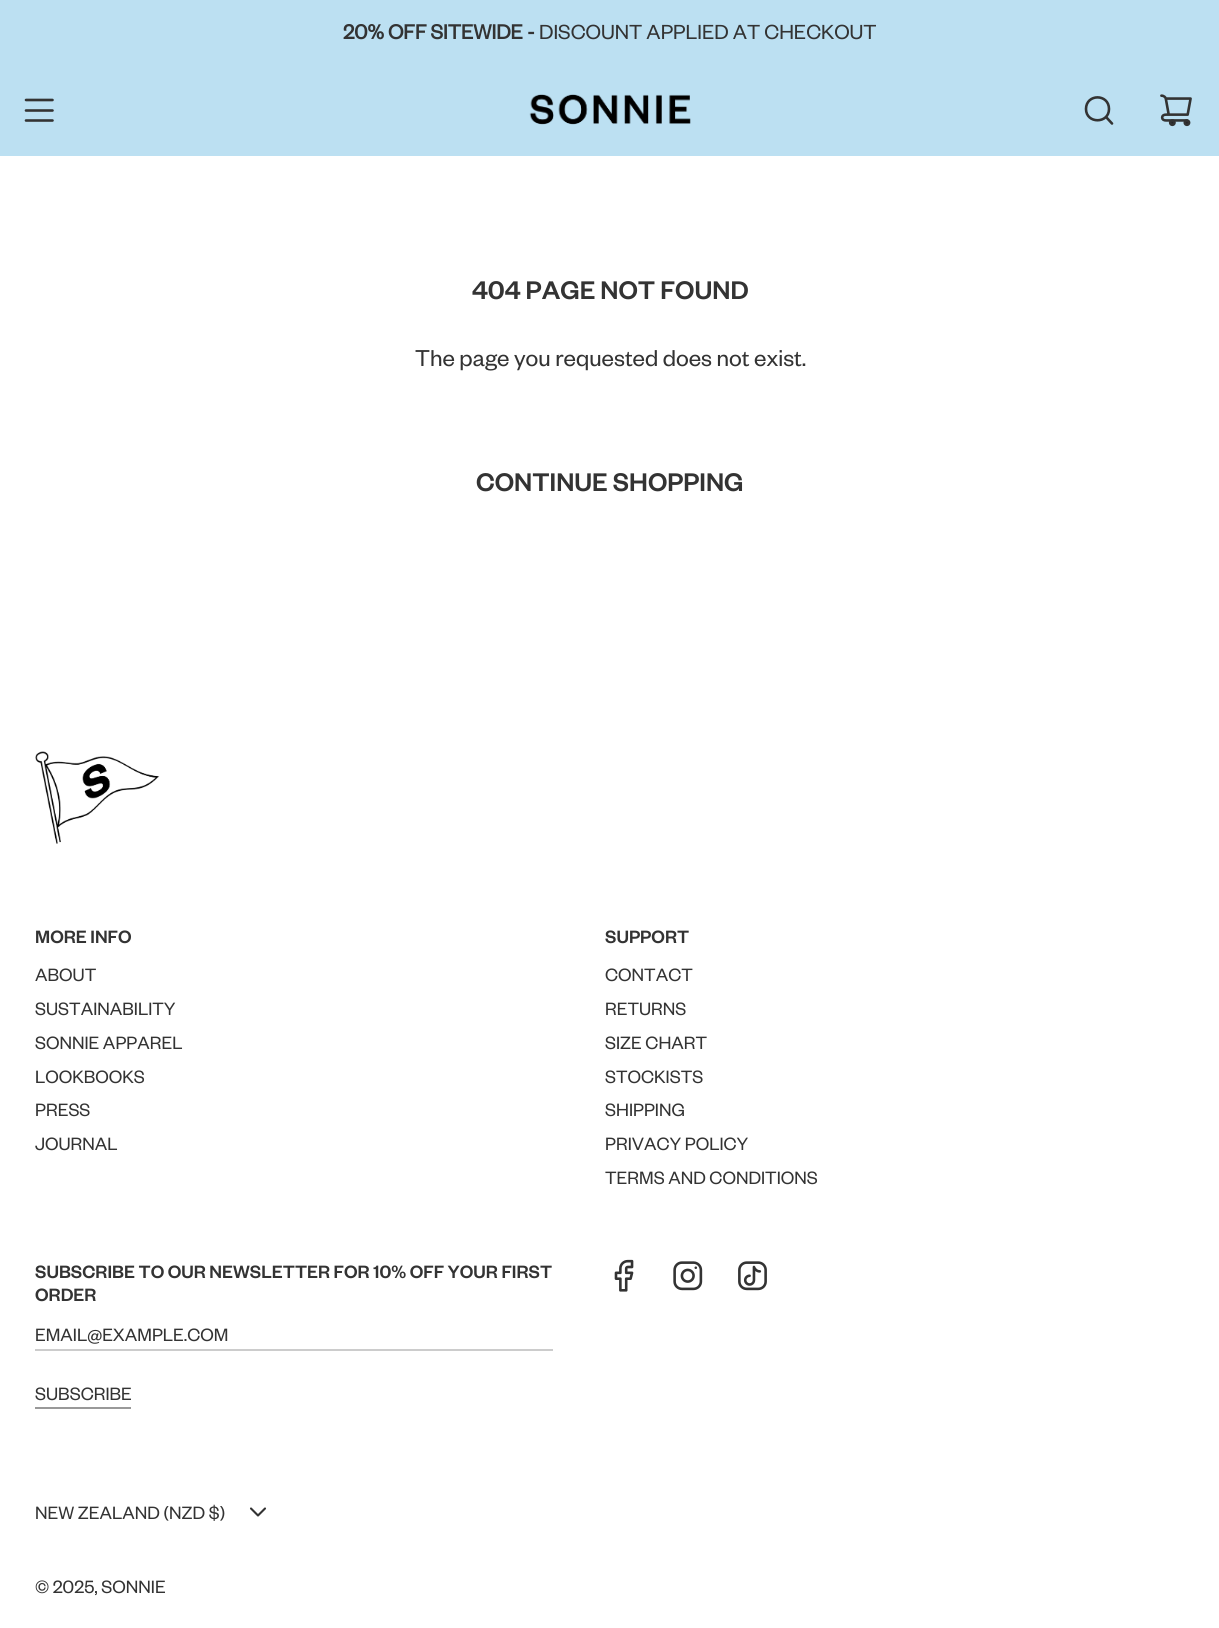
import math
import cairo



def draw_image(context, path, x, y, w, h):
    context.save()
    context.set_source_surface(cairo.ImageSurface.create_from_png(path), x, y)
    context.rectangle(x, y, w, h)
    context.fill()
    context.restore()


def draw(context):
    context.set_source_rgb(1, 1, 1)
    context.paint()
    context.set_source_rgb(188 / 255, 224 / 255, 242 / 255)
    context.rectangle(0, 0, 1219, 156)
    context.fill()
    context.new_path()
    context.move_to(26, 100)
    context.line_to(52.5, 100)
    context.move_to(26, 110.5)
    context.line_to(52.5, 110.5)
    context.move_to(26, 120.5)
    context.line_to(52.5, 120.5)
    context.set_source_rgb(51 / 255, 51 / 255, 51 / 255)
    context.set_line_width(2.6)
    context.set_line_cap(cairo.LineCap.ROUND)
    context.set_line_join(cairo.LineJoin.ROUND)
    context.stroke()
    draw_image(context, "images/1.png", 529, 94, 162, 31)
    context.new_path()
    context.move_to(1106.5, 117.5)
    context.line_to(1112, 123.5)
    context.move_to(1086, 109)
    context.curve_to(1086, 124, 1109, 124, 1109, 109)
    context.curve_to(1109, 93.5, 1086, 93.5, 1086, 109)
    context.close_path()
    context.stroke()
    draw_image(context, "images/2.png", 1160, 94, 32, 33)
    draw_image(context, "images/3.png", 35, 751, 125, 93)
    context.set_source_rgb(204 / 255, 204 / 255, 204 / 255)
    context.rectangle(35, 1349, 518, 2)
    context.fill()
    context.set_source_rgb(153 / 255, 153 / 255, 153 / 255)
    context.rectangle(35, 1407, 96, 2)
    context.fill()
    draw_image(context, "images/4.png", 614, 1259, 20, 33)
    draw_image(context, "images/5.png", 673, 1261, 30, 30)
    draw_image(context, "images/6.png", 738, 1261, 29, 30)
    context.new_path()
    context.move_to(251, 1508.5)
    context.line_to(258, 1515.5)
    context.line_to(265, 1508.5)
    context.set_source_rgb(51 / 255, 51 / 255, 51 / 255)
    context.set_line_width(2.1)
    context.stroke()
    context.select_font_face("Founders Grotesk", cairo.FontSlant.NORMAL, cairo.FontWeight.BOLD)
    context.set_font_size(22.4)
    context.move_to(343, 39)
    context.show_text("20% OFF SITEWIDE -")
    context.select_font_face("Founders Grotesk")
    context.move_to(539, 39)
    context.show_text("DISCOUNT APPLIED AT CHECKOUT")
    context.select_font_face("Founders Grotesk Medium")
    context.set_font_size(28)
    context.move_to(472, 299)
    context.show_text("404 PAGE NOT FOUND")
    context.select_font_face("Founders Grotesk")
    context.set_font_size(25.25)
    context.move_to(415, 366)
    context.show_text("The page you requested does not exist.")
    context.select_font_face("Founders Grotesk Medium")
    context.set_font_size(28)
    context.move_to(476, 491)
    context.show_text("CONTINUE SHOPPING")
    context.set_font_size(19.6)
    context.move_to(35, 943)
    context.show_text("MORE INFO")
    context.select_font_face("Founders Grotesk")
    context.move_to(35, 981)
    context.show_text("ABOUT")
    context.move_to(35, 1015)
    context.show_text("SUSTAINABILITY")
    context.move_to(35, 1049)
    context.show_text("SONNIE APPAREL")
    context.move_to(35, 1083)
    context.show_text("LOOKBOOKS")
    context.move_to(35, 1116)
    context.show_text("PRESS")
    context.move_to(35, 1150)
    context.show_text("JOURNAL")
    context.select_font_face("Founders Grotesk Medium")
    context.move_to(605, 943)
    context.show_text("SUPPORT")
    context.select_font_face("Founders Grotesk")
    context.move_to(605, 981)
    context.show_text("CONTACT")
    context.move_to(605, 1015)
    context.show_text("RETURNS")
    context.move_to(605, 1049)
    context.show_text("SIZE CHART")
    context.move_to(605, 1083)
    context.show_text("STOCKISTS")
    context.move_to(605, 1116)
    context.show_text("SHIPPING")
    context.move_to(605, 1150)
    context.show_text("PRIVACY POLICY")
    context.move_to(605, 1184)
    context.show_text("TERMS AND CONDITIONS")
    context.select_font_face("Founders Grotesk Medium")
    context.move_to(35, 1278)
    context.show_text("SUBSCRIBE TO OUR NEWSLETTER FOR 10% OFF YOUR FIRST")
    context.move_to(35, 1301)
    context.show_text("ORDER")
    context.select_font_face("Founders Grotesk")
    context.move_to(35, 1341)
    context.show_text("EMAIL@EXAMPLE.COM")
    context.move_to(35, 1400)
    context.show_text("SUBSCRIBE")
    context.move_to(35, 1519)
    context.show_text("NEW ZEALAND (NZD $)")
    context.move_to(35, 1593)
    context.show_text("© 2025, SONNIE")


surface = cairo.ImageSurface(cairo.Format.RGB24, 1219, 1628)
context = cairo.Context(surface)
options = cairo.FontOptions()
options.set_hint_metrics(cairo.HintMetrics.OFF)
options.set_hint_style(cairo.HintStyle.NONE)
context.set_font_options(options)
context.set_miter_limit(4)
draw(context)
surface.write_to_png("out.png")
